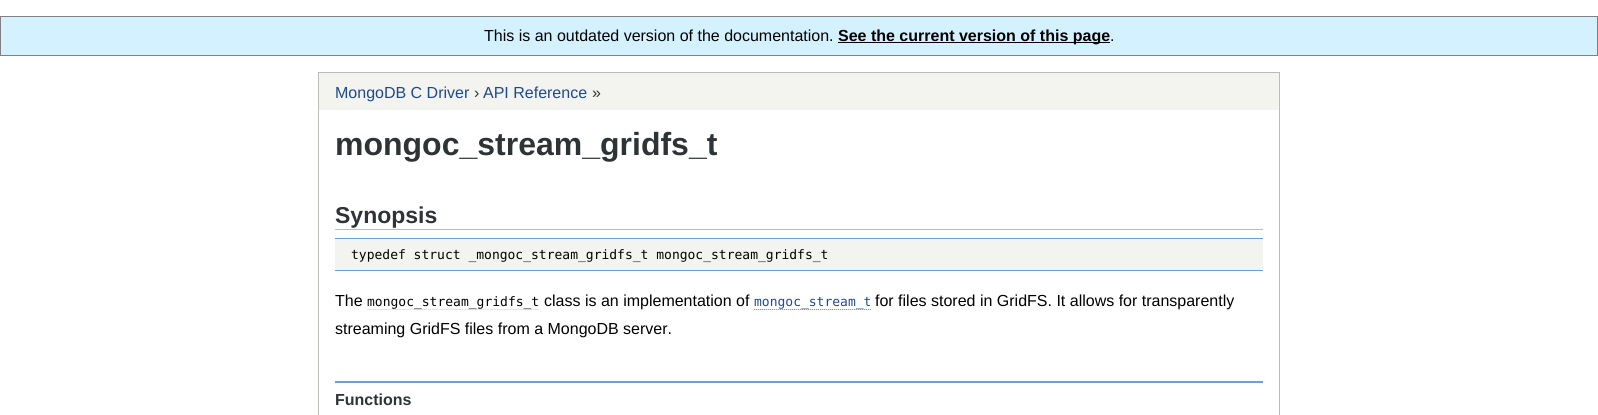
import math
import cairo



def draw(context):
    context.set_source_rgb(1, 1, 1)
    context.paint()
    context.set_source_rgb(212 / 255, 241 / 255, 1)
    context.rectangle(0.5, 16.5, 1597, 39)
    context.fill_preserve()
    context.set_source_rgb(128 / 255, 128 / 255, 128 / 255)
    context.set_line_width(1)
    context.stroke()
    context.set_source_rgb(0, 0, 0)
    context.rectangle(838, 42, 272, 1)
    context.fill()
    context.rectangle(318.5, 72.5, 961, 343)
    context.set_source_rgb(186 / 255, 189 / 255, 182 / 255)
    context.stroke()
    context.set_source_rgb(243 / 255, 243 / 255, 240 / 255)
    context.rectangle(319, 73, 960, 37)
    context.fill()
    context.set_source_rgb(186 / 255, 189 / 255, 182 / 255)
    context.rectangle(335, 229, 928, 1)
    context.fill()
    context.set_source_rgb(243 / 255, 243 / 255, 240 / 255)
    context.rectangle(335, 239, 928, 31)
    context.fill()
    context.set_source_rgb(114 / 255, 159 / 255, 207 / 255)
    context.rectangle(335, 238, 928, 1)
    context.fill()
    context.rectangle(335, 270, 928, 1)
    context.fill()
    context.set_source_rgb(229 / 255, 229 / 255, 227 / 255)
    context.rectangle(367, 309, 172, 1)
    context.fill()
    context.rectangle(754, 309, 117, 1)
    context.fill()
    context.new_path()
    context.move_to(754, 309.5)
    context.line_to(871, 309.5)
    context.set_source_rgb(114 / 255, 159 / 255, 207 / 255)
    context.set_dash([1, 1])
    context.stroke()
    context.rectangle(335, 381, 928, 2)
    context.fill()
    context.select_font_face("Liberation Sans")
    context.set_font_size(16)
    context.set_source_rgb(0, 0, 0)
    context.move_to(484, 41)
    context.show_text("This is an outdated version of the documentation.")
    context.select_font_face("Liberation Sans", cairo.FontSlant.NORMAL, cairo.FontWeight.BOLD)
    context.move_to(838, 41)
    context.show_text("See the current version of this page")
    context.select_font_face("Liberation Sans")
    context.move_to(1110, 41)
    context.show_text(".")
    context.set_source_rgb(32 / 255, 74 / 255, 135 / 255)
    context.move_to(335, 98)
    context.show_text("MongoDB C Driver")
    context.set_source_rgb(46 / 255, 52 / 255, 54 / 255)
    context.move_to(474, 98)
    context.show_text("›")
    context.set_source_rgb(32 / 255, 74 / 255, 135 / 255)
    context.move_to(483, 98)
    context.show_text("API Reference")
    context.set_source_rgb(46 / 255, 52 / 255, 54 / 255)
    context.move_to(592, 98)
    context.show_text("»")
    context.select_font_face("Liberation Sans", cairo.FontSlant.NORMAL, cairo.FontWeight.BOLD)
    context.set_font_size(32)
    context.move_to(335, 155)
    context.show_text("mongoc_stream_gridfs_t")
    context.set_font_size(23)
    context.move_to(335, 223)
    context.show_text("Synopsis")
    context.select_font_face("DejaVu Sans Mono")
    context.set_font_size(13)
    context.set_source_rgb(0, 0, 0)
    context.move_to(351, 259)
    context.show_text("typedef struct _mongoc_stream_gridfs_t mongoc_stream_gridfs_t")
    context.select_font_face("Liberation Sans")
    context.set_font_size(16)
    context.move_to(335, 306)
    context.show_text("The")
    context.select_font_face("DejaVu Sans Mono")
    context.set_font_size(13)
    context.move_to(367, 306)
    context.show_text("mongoc_stream_gridfs_t")
    context.select_font_face("Liberation Sans")
    context.set_font_size(16)
    context.move_to(544, 306)
    context.show_text("class is an implementation of")
    context.select_font_face("DejaVu Sans Mono")
    context.set_font_size(13)
    context.set_source_rgb(32 / 255, 74 / 255, 135 / 255)
    context.move_to(754, 306)
    context.show_text("mongoc_stream_t")
    context.select_font_face("Liberation Sans")
    context.set_font_size(16)
    context.set_source_rgb(0, 0, 0)
    context.move_to(875, 306)
    context.show_text("for files stored in GridFS. It allows for transparently")
    context.move_to(335, 334)
    context.show_text("streaming GridFS files from a MongoDB server.")
    context.select_font_face("Liberation Sans", cairo.FontSlant.NORMAL, cairo.FontWeight.BOLD)
    context.set_source_rgb(46 / 255, 52 / 255, 54 / 255)
    context.move_to(335, 405)
    context.show_text("Functions")


surface = cairo.ImageSurface(cairo.Format.RGB24, 1598, 415)
context = cairo.Context(surface)
options = cairo.FontOptions()
options.set_hint_metrics(cairo.HintMetrics.OFF)
options.set_hint_style(cairo.HintStyle.NONE)
context.set_font_options(options)
context.set_miter_limit(4)
draw(context)
surface.write_to_png("out.png")
